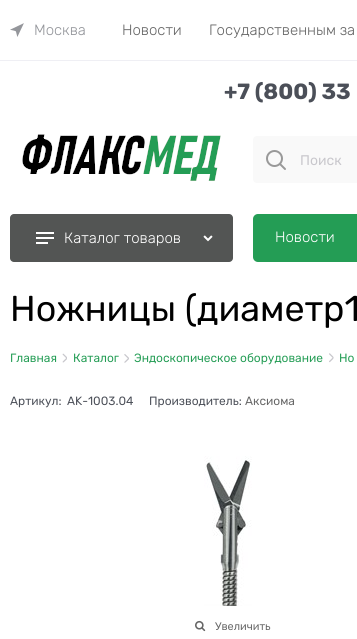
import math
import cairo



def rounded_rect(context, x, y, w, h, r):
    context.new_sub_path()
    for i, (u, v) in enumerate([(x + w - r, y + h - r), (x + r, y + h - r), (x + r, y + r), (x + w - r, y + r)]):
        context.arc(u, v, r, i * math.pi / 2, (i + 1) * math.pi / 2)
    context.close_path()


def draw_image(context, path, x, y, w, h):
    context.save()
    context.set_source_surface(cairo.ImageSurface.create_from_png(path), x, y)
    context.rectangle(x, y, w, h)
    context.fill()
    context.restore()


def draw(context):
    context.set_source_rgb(1, 1, 1)
    context.paint()
    context.set_source_rgb(239 / 255, 239 / 255, 244 / 255)
    context.rectangle(0, 60, 357, 1)
    context.fill()
    draw_image(context, "images/1.png", 10, 23, 14, 14)
    draw_image(context, "images/2.png", 22, 134, 199, 47)
    context.set_source_rgb(249 / 255, 249 / 255, 249 / 255)
    rounded_rect(context, 253, 136, 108, 47, 4)
    context.fill()
    draw_image(context, "images/3.png", 266, 150, 20, 20)
    context.set_source_rgb(83 / 255, 85 / 255, 84 / 255)
    rounded_rect(context, 10, 214, 223, 48, 4)
    context.fill()
    draw_image(context, "images/4.png", 36, 232, 18, 12)
    draw_image(context, "images/5.png", 203, 235, 10, 7)
    context.set_source_rgb(36 / 255, 157 / 255, 85 / 255)
    rounded_rect(context, 253, 214, 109, 48, 5)
    context.fill()
    draw_image(context, "images/6.png", 62, 353, 5, 10)
    draw_image(context, "images/7.png", 124, 354, 5, 9)
    draw_image(context, "images/8.png", 329, 353, 5, 10)
    draw_image(context, "images/9.png", 204, 456, 48, 150)
    draw_image(context, "images/10.png", 195, 620, 11, 12)
    context.select_font_face("Rubik Light")
    context.set_font_size(15)
    context.set_source_rgb(148 / 255, 150 / 255, 155 / 255)
    context.move_to(34, 35)
    context.show_text("Москва")
    context.set_source_rgb(102 / 255, 102 / 255, 102 / 255)
    context.move_to(122, 35)
    context.show_text("Новости")
    context.move_to(209, 35)
    context.show_text("Государственным за")
    context.select_font_face("Rubik", cairo.FontSlant.NORMAL, cairo.FontWeight.BOLD)
    context.set_font_size(22)
    context.set_source_rgb(75 / 255, 79 / 255, 88 / 255)
    context.move_to(224, 99)
    context.show_text("+7 (800) 33")
    context.select_font_face("Rubik")
    context.set_font_size(14)
    context.set_source_rgb(200 / 255, 199 / 255, 204 / 255)
    context.move_to(300, 165)
    context.show_text("Поиск")
    context.select_font_face("Rubik Light")
    context.set_font_size(15)
    context.set_source_rgb(1, 1, 1)
    context.move_to(64, 243)
    context.show_text("Каталог товаров")
    context.move_to(275, 242)
    context.show_text("Новости")
    context.select_font_face("Rubik")
    context.set_font_size(36)
    context.set_source_rgb(0, 0, 0)
    context.move_to(10, 321)
    context.show_text("Ножницы (диаметр1")
    context.set_font_size(12)
    context.set_source_rgb(36 / 255, 157 / 255, 85 / 255)
    context.move_to(10, 362)
    context.show_text("Главная")
    context.move_to(73, 362)
    context.show_text("Каталог")
    context.move_to(134, 362)
    context.show_text("Эндоскопическое оборудование")
    context.move_to(339, 362)
    context.show_text("Но")
    context.set_source_rgb(75 / 255, 79 / 255, 88 / 255)
    context.move_to(10, 405)
    context.show_text("Артикул:")
    context.move_to(67, 405)
    context.show_text("AK-1003.04")
    context.move_to(149, 405)
    context.show_text("Производитель:")
    context.set_source_rgb(102 / 255, 102 / 255, 102 / 255)
    context.move_to(245, 405)
    context.show_text("Аксиома")
    context.set_font_size(11)
    context.move_to(215, 630)
    context.show_text("Увеличить")


surface = cairo.ImageSurface(cairo.Format.RGB24, 357, 639)
context = cairo.Context(surface)
options = cairo.FontOptions()
options.set_hint_metrics(cairo.HintMetrics.OFF)
options.set_hint_style(cairo.HintStyle.NONE)
context.set_font_options(options)
context.set_miter_limit(4)
draw(context)
surface.write_to_png("out.png")
